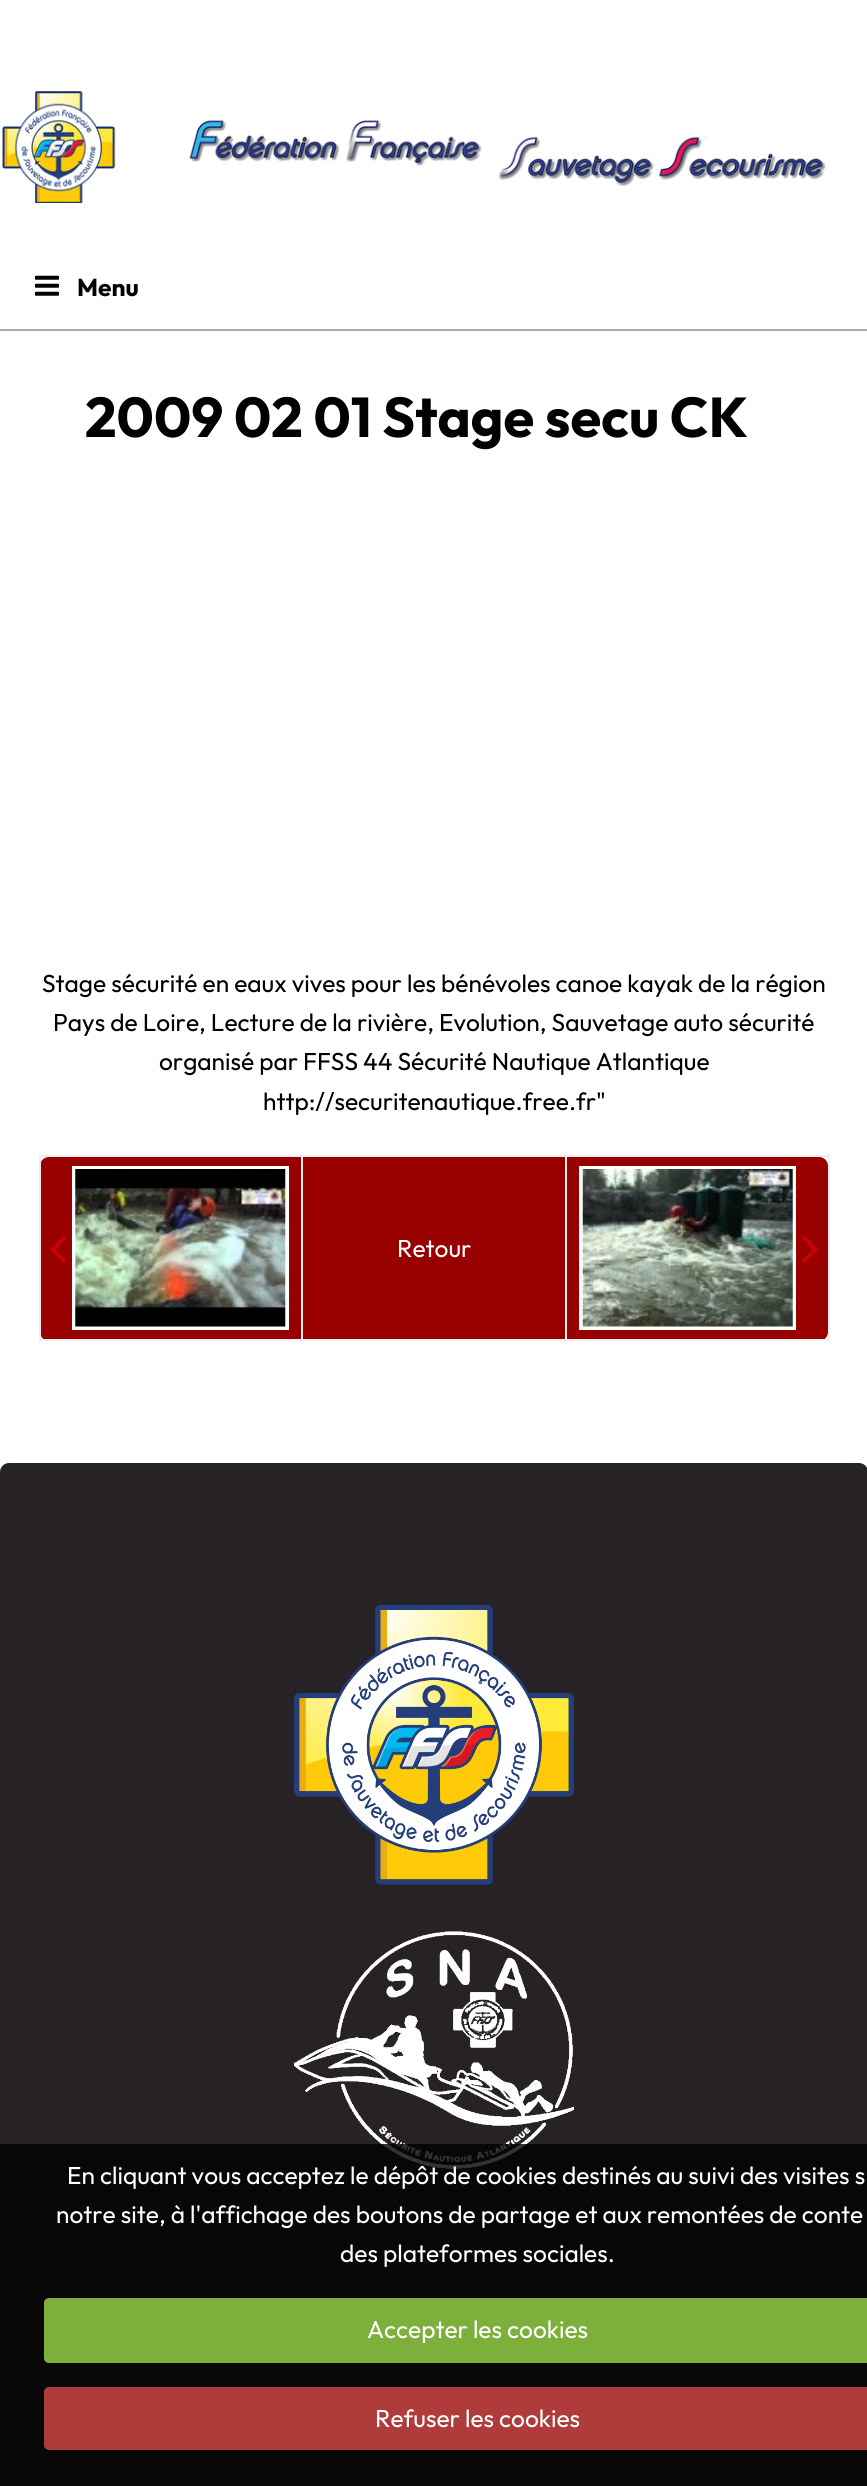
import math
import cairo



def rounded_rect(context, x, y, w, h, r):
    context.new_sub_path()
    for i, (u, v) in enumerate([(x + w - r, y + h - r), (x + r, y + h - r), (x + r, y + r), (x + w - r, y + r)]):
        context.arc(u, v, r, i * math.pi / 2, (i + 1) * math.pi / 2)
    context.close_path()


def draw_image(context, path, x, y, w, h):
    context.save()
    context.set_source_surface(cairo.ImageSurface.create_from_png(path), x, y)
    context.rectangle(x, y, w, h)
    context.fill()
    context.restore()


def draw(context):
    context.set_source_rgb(1, 1, 1)
    context.paint()
    draw_image(context, "images/1.png", 2, 91, 824, 112)
    context.set_source_rgb(170 / 255, 170 / 255, 170 / 255)
    context.rectangle(0, 329, 867, 2)
    context.fill()
    draw_image(context, "images/2.png", 35, 275, 24, 21)
    context.set_source_rgb(238 / 255, 238 / 255, 238 / 255)
    context.rectangle(39, 1155, 791, 2)
    context.fill()
    context.rectangle(828, 1155, 2, 186)
    context.fill()
    context.set_source_rgb(153 / 255, 0, 0)
    context.new_path()
    context.move_to(49, 1157)
    context.line_to(303, 1157)
    context.line_to(303, 1341)
    context.line_to(49, 1341)
    context.curve_to(44, 1341, 40, 1337, 40, 1332)
    context.line_to(40, 1166)
    context.curve_to(40, 1161, 44, 1157, 49, 1157)
    context.close_path()
    context.fill()
    context.new_path()
    context.move_to(565, 1157)
    context.line_to(819, 1157)
    context.curve_to(824, 1157, 828, 1161, 828, 1166)
    context.line_to(828, 1332)
    context.curve_to(828, 1337, 824, 1341, 819, 1341)
    context.line_to(565, 1341)
    context.close_path()
    context.fill()
    context.set_source_rgb(238 / 255, 238 / 255, 238 / 255)
    context.rectangle(39, 1339, 791, 2)
    context.fill()
    context.rectangle(39, 1155, 2, 186)
    context.fill()
    context.rectangle(74, 1168, 213, 160)
    context.set_source_rgb(1, 1, 1)
    context.set_line_width(4)
    context.stroke()
    draw_image(context, "images/3.png", 50, 1236, 16, 27)
    draw_image(context, "images/4.png", 75, 1169, 211, 158)
    context.set_source_rgb(153 / 255, 0, 0)
    context.rectangle(303, 1157, 262, 182)
    context.fill()
    context.set_source_rgb(238 / 255, 238 / 255, 238 / 255)
    context.rectangle(301, 1155, 2, 186)
    context.fill()
    context.rectangle(565, 1155, 2, 186)
    context.fill()
    context.rectangle(581, 1168, 213, 160)
    context.set_source_rgb(1, 1, 1)
    context.stroke()
    draw_image(context, "images/5.png", 582, 1169, 211, 158)
    draw_image(context, "images/6.png", 802, 1236, 16, 27)
    context.set_source_rgb(38 / 255, 34 / 255, 38 / 255)
    rounded_rect(context, 0, 1463, 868, 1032, 9)
    context.fill()
    draw_image(context, "images/7.png", 294, 1604, 280, 281)
    draw_image(context, "images/8.png", 294, 1931, 280, 238)
    context.set_source_rgba(0, 0, 0, 0.8)
    context.rectangle(0, 2144, 867, 342)
    context.fill()
    context.set_source_rgb(125 / 255, 175 / 255, 59 / 255)
    rounded_rect(context, 44, 2298, 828, 65, 5)
    context.fill()
    context.set_source_rgb(175 / 255, 59 / 255, 59 / 255)
    rounded_rect(context, 44, 2387, 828, 63, 5)
    context.fill()
    context.select_font_face("Outfit", cairo.FontSlant.NORMAL, cairo.FontWeight.BOLD)
    context.set_font_size(24.5)
    context.set_source_rgb(0, 0, 0)
    context.move_to(77, 296)
    context.show_text("Menu")
    context.set_font_size(56)
    context.move_to(85, 437)
    context.show_text("2009 02 01 Stage secu CK")
    context.select_font_face("Outfit")
    context.set_font_size(24.5)
    context.move_to(42, 992)
    context.show_text("Stage sécurité en eaux vives pour les bénévoles canoe kayak de la région")
    context.move_to(53, 1031)
    context.show_text("Pays de Loire, Lecture de la rivière, Evolution, Sauvetage auto sécurité")
    context.move_to(159, 1070)
    context.show_text("organisé par FFSS 44 Sécurité Nautique Atlantique")
    context.move_to(263, 1110)
    context.show_text("http://securitenautique.free.fr\"")
    context.set_source_rgb(1, 1, 1)
    context.move_to(397, 1257)
    context.show_text("Retour")
    context.move_to(67, 2184)
    context.show_text("En cliquant vous acceptez le dépôt de cookies destinés au suivi des visites s")
    context.move_to(56, 2223)
    context.show_text("notre site, à l'affichage des boutons de partage et aux remontées de conte")
    context.move_to(340, 2262)
    context.show_text("des plateformes sociales.")
    context.move_to(367, 2338)
    context.show_text("Accepter les cookies")
    context.move_to(375, 2427)
    context.show_text("Refuser les cookies")


surface = cairo.ImageSurface(cairo.Format.RGB24, 867, 2486)
context = cairo.Context(surface)
options = cairo.FontOptions()
options.set_hint_metrics(cairo.HintMetrics.OFF)
options.set_hint_style(cairo.HintStyle.NONE)
context.set_font_options(options)
context.set_miter_limit(4)
draw(context)
surface.write_to_png("out.png")
